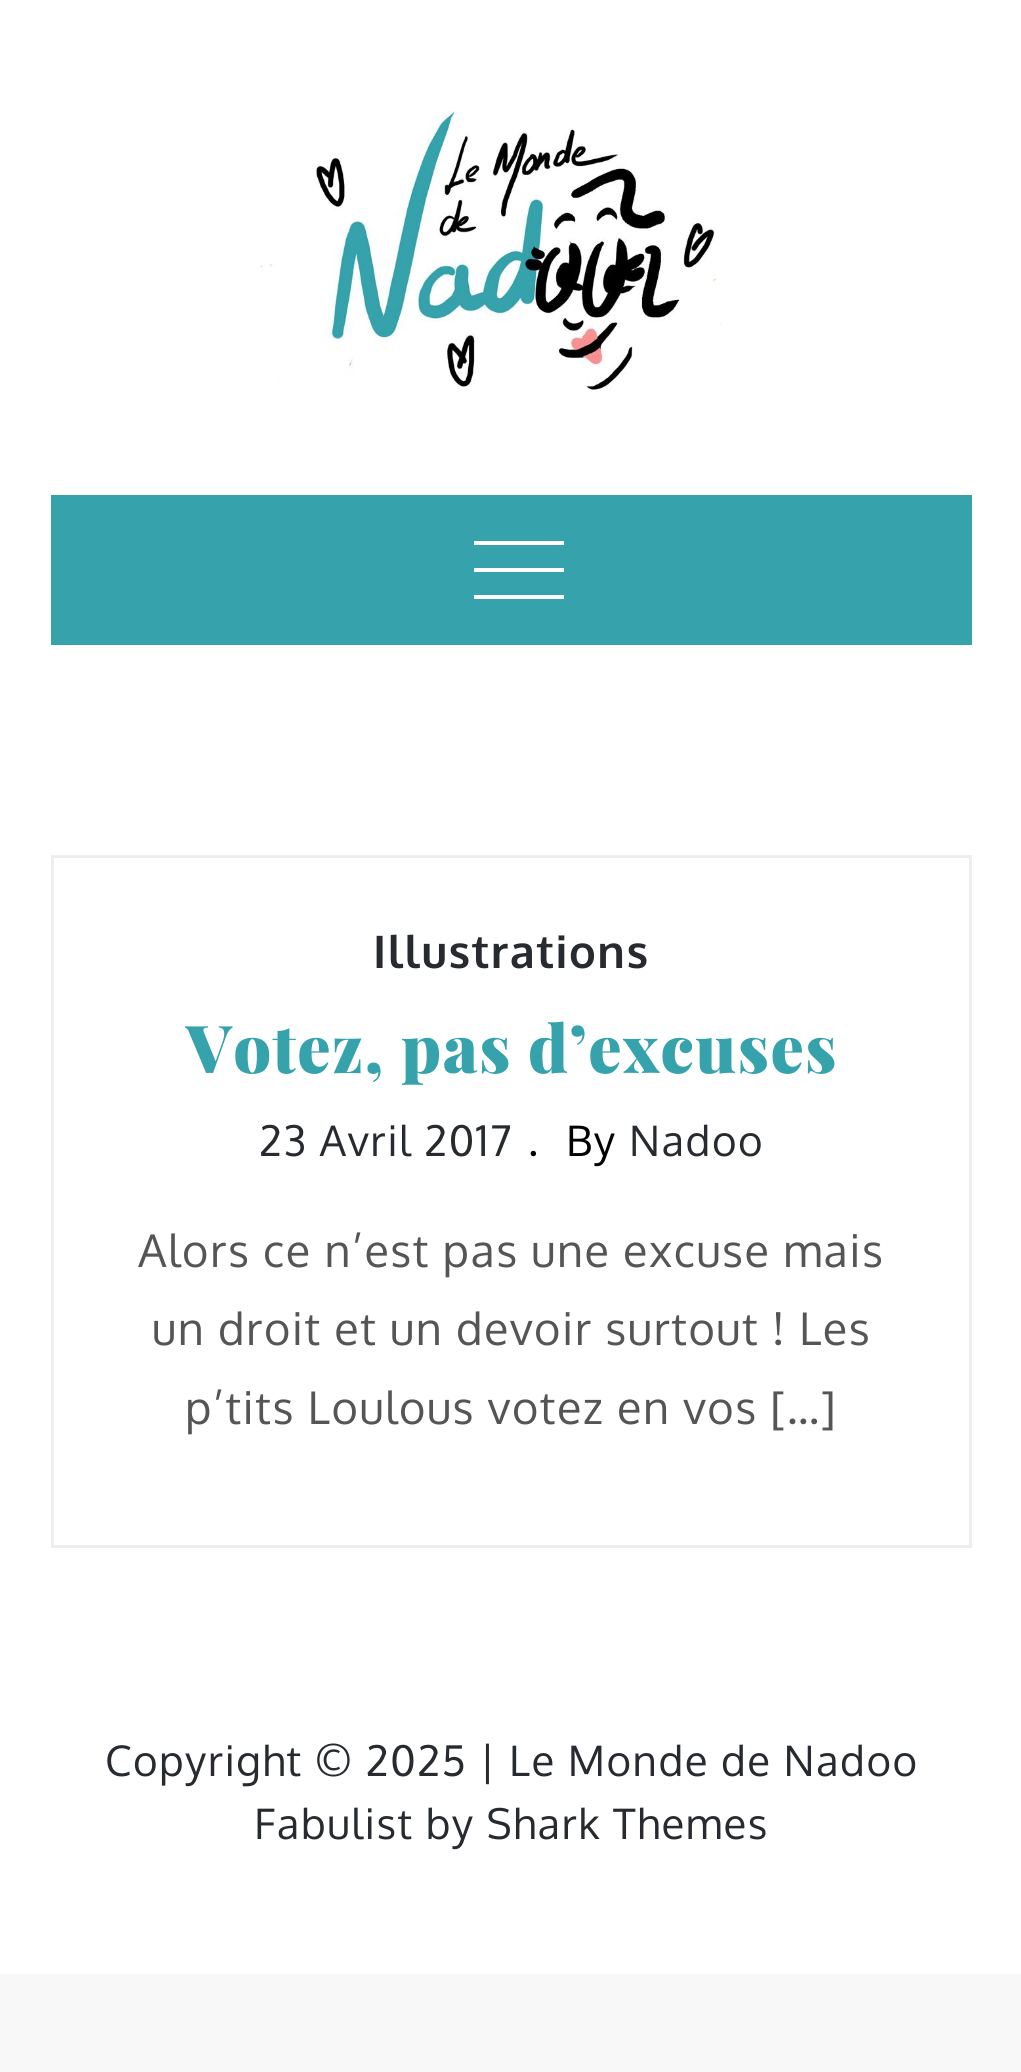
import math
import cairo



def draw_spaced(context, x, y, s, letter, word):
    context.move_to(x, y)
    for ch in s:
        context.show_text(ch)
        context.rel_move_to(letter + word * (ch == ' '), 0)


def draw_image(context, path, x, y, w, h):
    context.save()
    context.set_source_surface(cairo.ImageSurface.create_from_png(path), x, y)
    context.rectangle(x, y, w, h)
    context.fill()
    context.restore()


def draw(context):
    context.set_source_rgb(248 / 255, 248 / 255, 248 / 255)
    context.paint()
    context.set_source_rgb(1, 1, 1)
    context.rectangle(0, 0, 1021, 1974)
    context.fill()
    draw_image(context, "images/1.png", 260, 111, 462, 279)
    context.set_source_rgb(53 / 255, 162 / 255, 172 / 255)
    context.rectangle(51, 495, 921, 150)
    context.fill()
    context.set_source_rgb(1, 1, 1)
    context.rectangle(474, 541, 90, 4)
    context.fill()
    context.rectangle(474, 568, 90, 4)
    context.fill()
    context.rectangle(474, 595, 90, 4)
    context.fill()
    context.rectangle(52.5, 856.5, 918, 690)
    context.set_source_rgb(238 / 255, 238 / 255, 238 / 255)
    context.set_line_width(3)
    context.stroke()
    context.select_font_face("Oxygen", cairo.FontSlant.NORMAL, cairo.FontWeight.BOLD)
    context.set_font_size(45)
    context.set_source_rgb(39 / 255, 43 / 255, 47 / 255)
    draw_spaced(context, 373, 968, "Illustrations", 1.5, 0)
    context.select_font_face("Playfair Display Black")
    context.set_font_size(66)
    context.set_source_rgb(53 / 255, 162 / 255, 172 / 255)
    draw_spaced(context, 186, 1073, "Votez, pas d’excuses", 1.5, 0)
    context.select_font_face("Oxygen")
    context.set_font_size(42)
    context.set_source_rgb(39 / 255, 43 / 255, 47 / 255)
    draw_spaced(context, 259, 1156, "23 Avril 2017", 1.5, 0)
    context.set_source_rgb(0, 0, 0)
    draw_spaced(context, 528, 1156, ".", 1.5, 0)
    draw_spaced(context, 566, 1156, "By", 1.5, 0)
    context.set_source_rgb(39 / 255, 43 / 255, 47 / 255)
    draw_spaced(context, 629, 1156, "Nadoo", 1.5, 0)
    context.set_font_size(45)
    context.set_source_rgb(85 / 255, 85 / 255, 85 / 255)
    draw_spaced(context, 138, 1267, "Alors ce n’est pas une excuse mais", 1.5, 0)
    draw_spaced(context, 152, 1345, "un droit et un devoir surtout ! Les", 1.5, 0)
    draw_spaced(context, 185, 1424, "p’tits Loulous votez en vos […]", 1.5, 0)
    context.set_font_size(42)
    context.set_source_rgb(39 / 255, 43 / 255, 47 / 255)
    draw_spaced(context, 105, 1776, "Copyright © 2025 | Le Monde de Nadoo", 1.5, 0)
    draw_spaced(context, 254, 1839, "Fabulist by Shark Themes", 1.5, 0)


surface = cairo.ImageSurface(cairo.Format.RGB24, 1021, 2072)
context = cairo.Context(surface)
options = cairo.FontOptions()
options.set_hint_metrics(cairo.HintMetrics.OFF)
options.set_hint_style(cairo.HintStyle.NONE)
context.set_font_options(options)
context.set_miter_limit(4)
draw(context)
surface.write_to_png("out.png")
